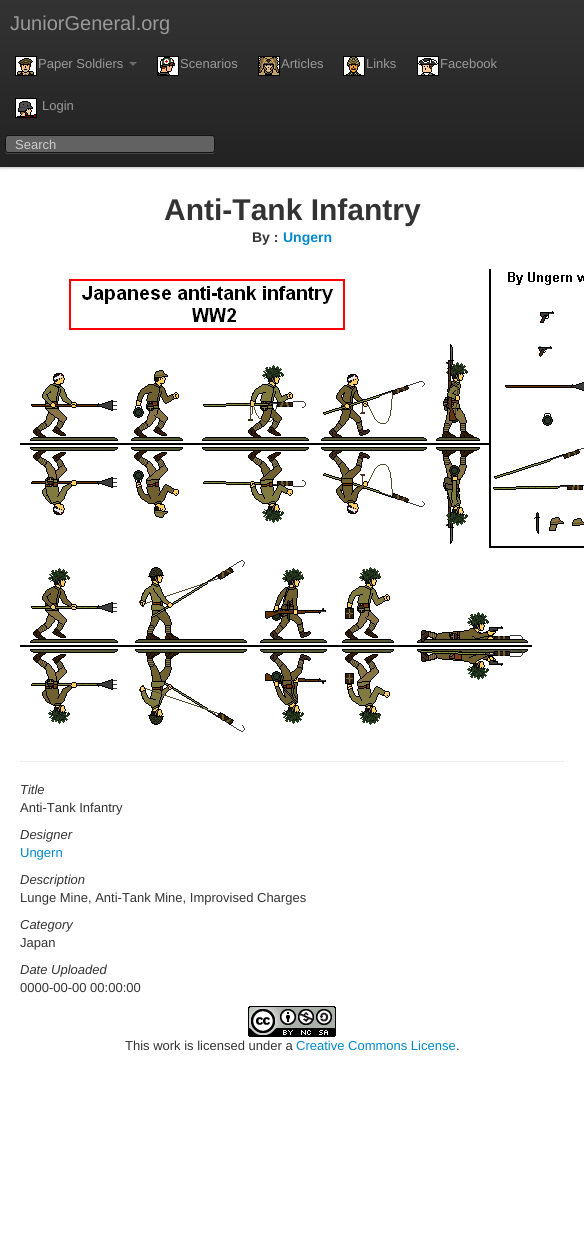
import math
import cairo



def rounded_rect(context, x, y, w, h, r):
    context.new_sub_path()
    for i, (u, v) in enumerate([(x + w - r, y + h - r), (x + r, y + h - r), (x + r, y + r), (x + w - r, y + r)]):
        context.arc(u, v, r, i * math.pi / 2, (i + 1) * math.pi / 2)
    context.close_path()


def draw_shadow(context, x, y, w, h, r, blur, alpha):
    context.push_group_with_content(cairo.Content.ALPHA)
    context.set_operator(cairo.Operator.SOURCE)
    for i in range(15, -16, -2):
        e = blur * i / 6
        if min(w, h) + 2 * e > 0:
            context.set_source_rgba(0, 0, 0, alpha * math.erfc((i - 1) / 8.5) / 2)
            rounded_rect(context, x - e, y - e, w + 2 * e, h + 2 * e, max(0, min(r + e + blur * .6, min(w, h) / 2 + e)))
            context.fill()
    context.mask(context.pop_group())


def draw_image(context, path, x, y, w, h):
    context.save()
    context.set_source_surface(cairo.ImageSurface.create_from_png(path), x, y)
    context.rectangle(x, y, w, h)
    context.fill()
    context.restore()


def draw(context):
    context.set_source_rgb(1, 1, 1)
    context.paint()
    context.set_source_rgb(0, 0, 0)
    draw_shadow(context, 0, 1, 584, 167, 0, 1.5, 0.25)
    gradient = cairo.LinearGradient(292, 0, 292, 167)
    gradient.add_color_stop_rgba(0, 51 / 255, 51 / 255, 51 / 255, 1)
    gradient.add_color_stop_rgba(1, 34 / 255, 34 / 255, 34 / 255, 1)
    context.set_source(gradient)
    context.rectangle(0, 0, 584, 166)
    context.fill()
    context.set_source_rgb(31 / 255, 31 / 255, 31 / 255)
    context.rectangle(0, 166, 584, 1)
    context.fill()
    draw_image(context, "images/1.png", 15, 56, 22, 20)
    context.set_source_rgb(108 / 255, 108 / 255, 108 / 255)
    context.new_path()
    context.move_to(129, 62)
    context.line_to(137, 62)
    context.line_to(133, 66)
    context.close_path()
    context.fill()
    draw_image(context, "images/2.png", 157, 56, 22, 20)
    draw_image(context, "images/3.png", 258, 56, 22, 20)
    draw_image(context, "images/4.png", 343, 56, 22, 20)
    draw_image(context, "images/5.png", 417, 56, 22, 20)
    draw_image(context, "images/6.png", 15, 98, 22, 20)
    context.set_source_rgb(68 / 255, 68 / 255, 68 / 255)
    context.new_path()
    context.move_to(5, 150)
    context.line_to(5, 151)
    context.curve_to(5, 153, 6, 154, 8, 154)
    context.line_to(212, 154)
    context.curve_to(214, 154, 215, 153, 215, 151)
    context.line_to(215, 150)
    context.curve_to(215, 152, 214, 153, 212, 153)
    context.line_to(8, 153)
    context.line_to(6, 152)
    context.close_path()
    context.fill()
    context.set_source_rgb(98 / 255, 98 / 255, 98 / 255)
    rounded_rect(context, 5.5, 135.5, 209, 17, 2.5)
    context.fill_preserve()
    context.set_source_rgb(21 / 255, 21 / 255, 21 / 255)
    context.set_line_width(1)
    context.stroke()
    draw_image(context, "images/7.png", 20, 269, 564, 463)
    context.set_source_rgb(238 / 255, 238 / 255, 238 / 255)
    context.rectangle(20, 761, 544, 1)
    context.fill()
    draw_image(context, "images/8.png", 248, 1006, 88, 31)
    context.select_font_face("Liberation Sans")
    context.set_font_size(20)
    context.set_source_rgb(153 / 255, 153 / 255, 153 / 255)
    context.move_to(10, 30)
    context.show_text("JuniorGeneral.org")
    context.set_font_size(13)
    context.move_to(38, 68)
    context.show_text("Paper Soldiers")
    context.move_to(180, 68)
    context.show_text("Scenarios")
    context.move_to(281, 68)
    context.show_text("Articles")
    context.move_to(366, 68)
    context.show_text("Links")
    context.move_to(440, 68)
    context.show_text("Facebook")
    context.move_to(42, 110)
    context.show_text("Login")
    context.set_source_rgb(204 / 255, 204 / 255, 204 / 255)
    context.move_to(15, 149)
    context.show_text("Search")
    context.select_font_face("Liberation Sans", cairo.FontSlant.NORMAL, cairo.FontWeight.BOLD)
    context.set_font_size(30)
    context.set_source_rgb(51 / 255, 51 / 255, 51 / 255)
    context.move_to(164, 220)
    context.show_text("Anti-Tank Infantry")
    context.set_font_size(14)
    context.move_to(252, 242)
    context.show_text("By :")
    context.set_source_rgb(0, 136 / 255, 204 / 255)
    context.move_to(283, 242)
    context.show_text("Ungern")
    context.select_font_face("Liberation Sans", cairo.FontSlant.ITALIC)
    context.set_font_size(13)
    context.set_source_rgb(51 / 255, 51 / 255, 51 / 255)
    context.move_to(20, 794)
    context.show_text("Title")
    context.select_font_face("Liberation Sans")
    context.move_to(20, 812)
    context.show_text("Anti-Tank Infantry")
    context.select_font_face("Liberation Sans", cairo.FontSlant.ITALIC)
    context.move_to(20, 839)
    context.show_text("Designer")
    context.select_font_face("Liberation Sans")
    context.set_source_rgb(0, 136 / 255, 204 / 255)
    context.move_to(20, 857)
    context.show_text("Ungern")
    context.select_font_face("Liberation Sans", cairo.FontSlant.ITALIC)
    context.set_source_rgb(51 / 255, 51 / 255, 51 / 255)
    context.move_to(20, 884)
    context.show_text("Description")
    context.select_font_face("Liberation Sans")
    context.move_to(20, 902)
    context.show_text("Lunge Mine, Anti-Tank Mine, Improvised Charges")
    context.select_font_face("Liberation Sans", cairo.FontSlant.ITALIC)
    context.move_to(20, 929)
    context.show_text("Category")
    context.select_font_face("Liberation Sans")
    context.move_to(20, 947)
    context.show_text("Japan")
    context.select_font_face("Liberation Sans", cairo.FontSlant.ITALIC)
    context.move_to(20, 974)
    context.show_text("Date Uploaded")
    context.select_font_face("Liberation Sans")
    context.move_to(20, 992)
    context.show_text("0000-00-00 00:00:00")
    context.move_to(125, 1050)
    context.show_text("This work is licensed under a")
    context.set_source_rgb(0, 136 / 255, 204 / 255)
    context.move_to(296, 1050)
    context.show_text("Creative Commons License")
    context.set_source_rgb(51 / 255, 51 / 255, 51 / 255)
    context.move_to(456, 1050)
    context.show_text(".")


surface = cairo.ImageSurface(cairo.Format.RGB24, 584, 1255)
context = cairo.Context(surface)
options = cairo.FontOptions()
options.set_hint_metrics(cairo.HintMetrics.OFF)
options.set_hint_style(cairo.HintStyle.NONE)
context.set_font_options(options)
context.set_miter_limit(4)
draw(context)
surface.write_to_png("out.png")
